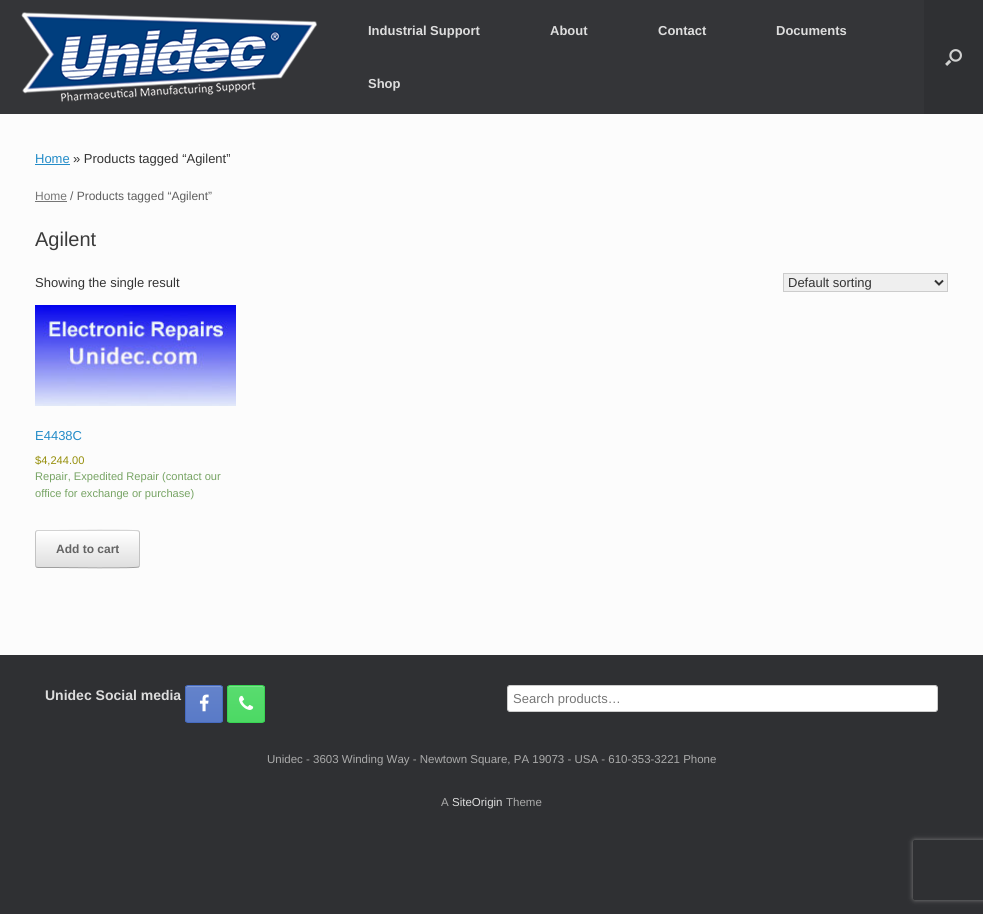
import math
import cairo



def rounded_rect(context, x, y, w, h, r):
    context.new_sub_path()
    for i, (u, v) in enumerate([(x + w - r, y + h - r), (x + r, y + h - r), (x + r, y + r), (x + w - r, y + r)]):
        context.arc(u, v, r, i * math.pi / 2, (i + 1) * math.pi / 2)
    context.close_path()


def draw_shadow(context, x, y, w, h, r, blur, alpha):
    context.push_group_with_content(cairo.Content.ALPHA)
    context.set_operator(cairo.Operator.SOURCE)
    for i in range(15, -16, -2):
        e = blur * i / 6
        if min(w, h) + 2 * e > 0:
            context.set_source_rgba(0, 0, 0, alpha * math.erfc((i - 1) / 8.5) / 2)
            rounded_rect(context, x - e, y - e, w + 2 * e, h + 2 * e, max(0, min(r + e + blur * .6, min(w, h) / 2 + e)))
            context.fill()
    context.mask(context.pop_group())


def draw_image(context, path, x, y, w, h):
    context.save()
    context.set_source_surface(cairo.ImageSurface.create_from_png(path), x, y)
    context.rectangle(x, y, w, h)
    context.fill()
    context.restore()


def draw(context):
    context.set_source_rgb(47 / 255, 48 / 255, 51 / 255)
    context.paint()
    context.set_source_rgb(52 / 255, 53 / 255, 56 / 255)
    context.rectangle(0, 0, 924, 114)
    context.fill()
    draw_image(context, "images/1.png", 21, 12, 296, 90)
    draw_image(context, "images/2.png", 945, 49, 17, 17)
    context.set_source_rgb(252 / 255, 252 / 255, 252 / 255)
    context.rectangle(0, 114, 983, 541)
    context.fill()
    context.set_source_rgb(36 / 255, 140 / 255, 200 / 255)
    context.rectangle(35, 164, 35, 1)
    context.fill()
    context.set_source_rgb(118 / 255, 118 / 255, 118 / 255)
    context.rectangle(35, 201, 32, 1)
    context.fill()
    context.set_source_rgb(239 / 255, 239 / 255, 239 / 255)
    context.rectangle(783.5, 273.5, 164, 18)
    context.fill_preserve()
    context.set_source_rgb(204 / 255, 204 / 255, 204 / 255)
    context.set_line_width(1)
    context.stroke()
    context.new_path()
    context.move_to(935, 280.5)
    context.line_to(939, 284.5)
    context.line_to(943, 280.5)
    context.set_source_rgb(51 / 255, 51 / 255, 51 / 255)
    context.set_line_width(2)
    context.stroke()
    draw_image(context, "images/3.png", 35, 305, 201, 101)
    context.save()
    rounded_rect(context, 35, 530, 105, 38, 3)
    context.clip()
    gradient = cairo.LinearGradient(36, 531, 36, 495)
    gradient.add_color_stop_rgba(0, 223 / 255, 223 / 255, 223 / 255, 1)
    gradient.add_color_stop_rgba(1, 1, 1, 1, 1)
    context.set_source(gradient)
    context.rectangle(35, 530, 105, 1)
    context.fill()
    gradient = cairo.LinearGradient(36, 567, 36, 531)
    gradient.add_color_stop_rgba(0, 223 / 255, 223 / 255, 223 / 255, 1)
    gradient.add_color_stop_rgba(1, 1, 1, 1, 1)
    context.set_source(gradient)
    context.rectangle(35, 531, 105, 36)
    context.fill()
    gradient = cairo.LinearGradient(36, 603, 36, 567)
    gradient.add_color_stop_rgba(0, 223 / 255, 223 / 255, 223 / 255, 1)
    gradient.add_color_stop_rgba(1, 1, 1, 1, 1)
    context.set_source(gradient)
    context.rectangle(35, 567, 105, 1)
    context.fill()
    context.restore()
    context.new_path()
    context.move_to(36, 531)
    context.line_to(38, 530.5)
    context.line_to(54.5, 530.5)
    context.curve_to(63, 530.5, 136.5, 529.5, 138.5, 531)
    context.line_to(139, 531)
    context.set_source_rgb(210 / 255, 210 / 255, 210 / 255)
    context.set_line_width(1)
    context.stroke()
    context.new_path()
    context.move_to(139, 531)
    context.curve_to(139, 531.5, 139.5, 532.5, 139.5, 533)
    context.line_to(139.5, 565)
    context.curve_to(139.5, 565.5, 139, 566.5, 139, 567)
    context.set_source_rgb(195 / 255, 195 / 255, 195 / 255)
    context.stroke()
    context.new_path()
    context.move_to(139, 567)
    context.line_to(138.5, 567)
    context.curve_to(136.5, 568.5, 63, 567.5, 54.5, 567.5)
    context.line_to(38, 567.5)
    context.line_to(36, 567)
    context.set_source_rgb(159 / 255, 159 / 255, 159 / 255)
    context.stroke()
    context.new_path()
    context.move_to(36, 567)
    context.curve_to(36, 566.5, 35.5, 565.5, 35.5, 565)
    context.line_to(35.5, 533)
    context.curve_to(35.5, 532.5, 36, 531.5, 36, 531)
    context.set_source_rgb(195 / 255, 195 / 255, 195 / 255)
    context.stroke()
    context.save()
    rounded_rect(context, 185, 685, 38, 38, 3)
    context.clip()
    gradient = cairo.LinearGradient(204, 722, 204, 686)
    gradient.add_color_stop_rgba(0, 89 / 255, 122 / 255, 199 / 255, 1)
    gradient.add_color_stop_rgba(1, 100 / 255, 131 / 255, 203 / 255, 1)
    context.set_source(gradient)
    context.rectangle(185, 686, 38, 36)
    context.fill()
    context.restore()
    context.set_source_rgb(131 / 255, 156 / 255, 213 / 255)
    context.new_path()
    context.move_to(188, 687)
    context.line_to(220, 687)
    context.curve_to(221, 687, 222, 688, 222, 689)
    context.curve_to(222, 684.5, 218.5, 686, 214.5, 686)
    context.line_to(193.5, 686)
    context.curve_to(189.5, 686, 186, 684.5, 186, 689)
    context.curve_to(186, 688, 187, 687, 188, 687)
    context.close_path()
    context.fill()
    rounded_rect(context, 185.5, 685.5, 37, 37, 2.5)
    context.set_source_rgb(70 / 255, 107 / 255, 193 / 255)
    context.stroke()
    draw_image(context, "images/4.png", 199, 694, 10, 18)
    context.save()
    rounded_rect(context, 227, 685, 38, 38, 3)
    context.clip()
    gradient = cairo.LinearGradient(246, 722, 246, 686)
    gradient.add_color_stop_rgba(0, 76 / 255, 217 / 255, 100 / 255, 1)
    gradient.add_color_stop_rgba(1, 89 / 255, 220 / 255, 111 / 255, 1)
    context.set_source(gradient)
    context.rectangle(227, 686, 38, 36)
    context.fill()
    context.restore()
    context.set_source_rgb(122 / 255, 227 / 255, 140 / 255)
    context.new_path()
    context.move_to(230, 687)
    context.line_to(262, 687)
    context.curve_to(263, 687, 264, 688, 264, 689)
    context.curve_to(264, 684.5, 260.5, 686, 256.5, 686)
    context.line_to(235.5, 686)
    context.curve_to(231.5, 686, 228, 684.5, 228, 689)
    context.curve_to(228, 688, 229, 687, 230, 687)
    context.close_path()
    context.fill()
    rounded_rect(context, 227.5, 685.5, 37, 37, 2.5)
    context.set_source_rgb(55 / 255, 213 / 255, 82 / 255)
    context.stroke()
    draw_image(context, "images/5.png", 239, 695, 15, 15)
    context.set_source_rgb(1, 1, 1)
    rounded_rect(context, 507.5, 685.5, 430, 26, 2.5)
    context.fill_preserve()
    context.set_source_rgb(204 / 255, 204 / 255, 204 / 255)
    context.stroke()
    context.save()
    context.set_fill_rule(cairo.FillRule.EVEN_ODD)
    context.new_path()
    context.move_to(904, 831)
    context.line_to(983, 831)
    context.line_to(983, 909)
    context.line_to(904, 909)
    context.close_path()
    context.move_to(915, 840)
    context.line_to(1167, 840)
    context.curve_to(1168, 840, 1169, 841, 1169, 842)
    context.line_to(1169, 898)
    context.curve_to(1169, 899, 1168, 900, 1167, 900)
    context.line_to(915, 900)
    context.curve_to(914, 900, 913, 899, 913, 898)
    context.line_to(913, 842)
    context.curve_to(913, 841, 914, 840, 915, 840)
    context.close_path()
    context.clip()
    context.set_source_rgb(128 / 255, 128 / 255, 128 / 255)
    draw_shadow(context, 913, 840, 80, 60, 2, 2.5, 1)
    context.restore()
    context.select_font_face("Liberation Sans", cairo.FontSlant.NORMAL, cairo.FontWeight.BOLD)
    context.set_font_size(13)
    context.set_source_rgb(221 / 255, 221 / 255, 221 / 255)
    context.move_to(368, 35)
    context.show_text("Industrial Support")
    context.move_to(550, 35)
    context.show_text("About")
    context.move_to(658, 35)
    context.show_text("Contact")
    context.move_to(776, 35)
    context.show_text("Documents")
    context.move_to(368, 88)
    context.show_text("Shop")
    context.select_font_face("Liberation Sans")
    context.set_source_rgb(36 / 255, 140 / 255, 200 / 255)
    context.move_to(35, 163)
    context.show_text("Home")
    context.set_source_rgb(51 / 255, 51 / 255, 51 / 255)
    context.move_to(73, 163)
    context.show_text("» Products tagged “Agilent”")
    context.set_font_size(12)
    context.set_source_rgb(118 / 255, 118 / 255, 118 / 255)
    context.move_to(35, 200)
    context.show_text("Home")
    context.set_source_rgb(94 / 255, 94 / 255, 94 / 255)
    context.move_to(70, 200)
    context.show_text("/ Products tagged “Agilent”")
    context.set_font_size(20)
    context.set_source_rgb(59 / 255, 59 / 255, 59 / 255)
    context.move_to(35, 246)
    context.show_text("Agilent")
    context.set_font_size(13)
    context.set_source_rgb(51 / 255, 51 / 255, 51 / 255)
    context.move_to(35, 287)
    context.show_text("Showing the single result")
    context.move_to(788, 287)
    context.show_text("Default sorting")
    context.set_source_rgb(36 / 255, 140 / 255, 200 / 255)
    context.move_to(35, 440)
    context.show_text("E4438C")
    context.set_font_size(11.1)
    context.set_source_rgb(149 / 255, 142 / 255, 9 / 255)
    context.move_to(35, 464)
    context.show_text("$4,244.00")
    context.set_source_rgb(119 / 255, 164 / 255, 100 / 255)
    context.move_to(35, 480)
    context.show_text("Repair, Expedited Repair (contact our")
    context.move_to(35, 497)
    context.show_text("office for exchange or purchase)")
    context.select_font_face("Liberation Sans", cairo.FontSlant.NORMAL, cairo.FontWeight.BOLD)
    context.set_font_size(12)
    context.set_source_rgb(100 / 255, 100 / 255, 100 / 255)
    context.move_to(56, 553)
    context.show_text("Add to cart")
    context.set_font_size(14)
    context.set_source_rgb(221 / 255, 221 / 255, 221 / 255)
    context.move_to(45, 700)
    context.show_text("Unidec Social media")
    context.select_font_face("Liberation Sans")
    context.set_font_size(13)
    context.set_source_rgb(118 / 255, 118 / 255, 118 / 255)
    context.move_to(513, 703)
    context.show_text("Search products…")
    context.set_font_size(11.5)
    context.set_source_rgb(170 / 255, 170 / 255, 170 / 255)
    context.move_to(267, 763)
    context.show_text("Unidec - 3603 Winding Way - Newtown Square, PA 19073 - USA - 610-353-3221 Phone")
    context.move_to(441, 806)
    context.show_text("A")
    context.set_source_rgb(221 / 255, 221 / 255, 221 / 255)
    context.move_to(452, 806)
    context.show_text("SiteOrigin")
    context.set_source_rgb(170 / 255, 170 / 255, 170 / 255)
    context.move_to(506, 806)
    context.show_text("Theme")


surface = cairo.ImageSurface(cairo.Format.RGB24, 983, 914)
context = cairo.Context(surface)
options = cairo.FontOptions()
options.set_hint_metrics(cairo.HintMetrics.OFF)
options.set_hint_style(cairo.HintStyle.NONE)
context.set_font_options(options)
context.set_miter_limit(4)
draw(context)
surface.write_to_png("out.png")
